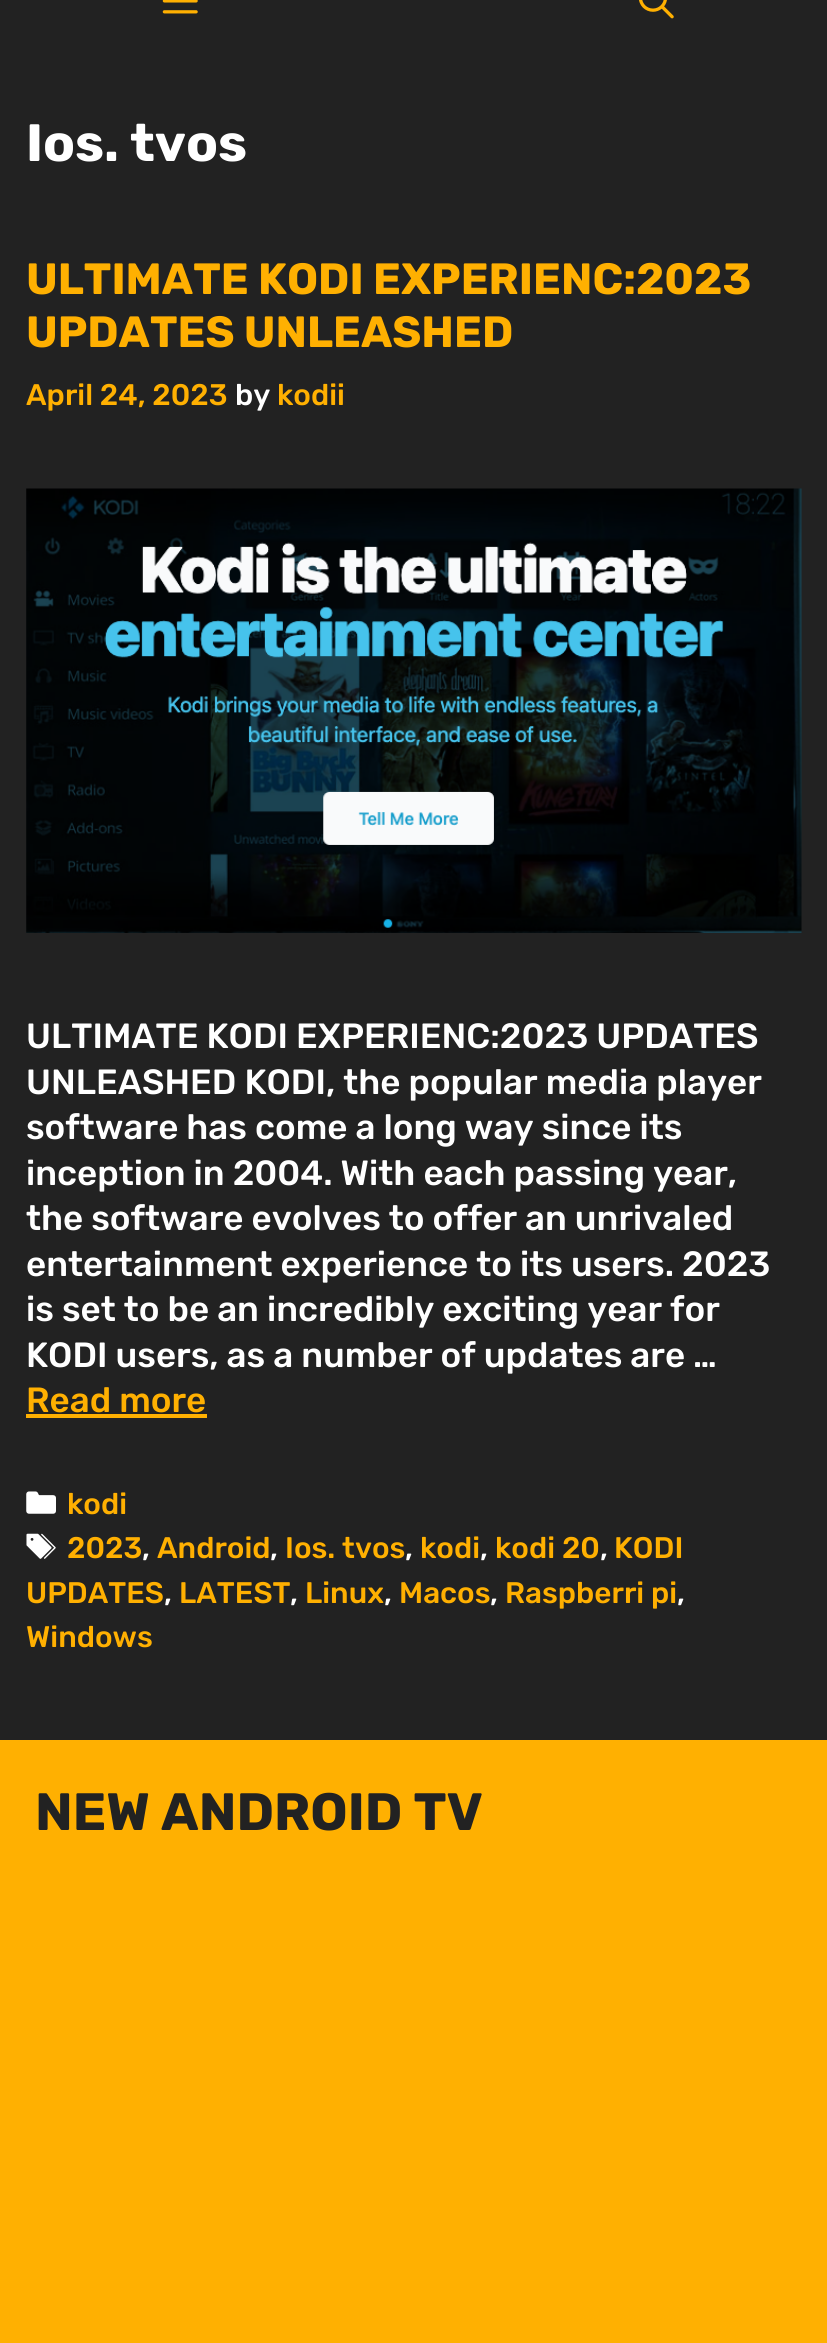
import math
import cairo



def draw_image(context, path, x, y, w, h):
    context.save()
    context.set_source_surface(cairo.ImageSurface.create_from_png(path), x, y)
    context.rectangle(x, y, w, h)
    context.fill()
    context.restore()


def draw(context):
    context.set_source_rgb(34 / 255, 34 / 255, 34 / 255)
    context.paint()
    draw_image(context, "images/1.png", 162, 0, 36, 14)
    draw_image(context, "images/2.png", 639, 0, 35, 19)
    draw_image(context, "images/3.png", 26, 488, 776, 445)
    context.set_source_rgb(1, 176 / 255, 1 / 255)
    context.rectangle(26, 1414, 181, 4)
    context.fill()
    draw_image(context, "images/4.png", 26, 1491, 30, 23)
    draw_image(context, "images/5.png", 26, 1533, 30, 26)
    context.rectangle(0, 1740, 827, 603)
    context.fill()
    context.select_font_face("Rubik", cairo.FontSlant.NORMAL, cairo.FontWeight.BOLD)
    context.set_font_size(52.5)
    context.set_source_rgb(1, 1, 1)
    context.move_to(26, 161)
    context.show_text("Ios. tvos")
    context.set_font_size(43.75)
    context.set_source_rgb(1, 176 / 255, 1 / 255)
    context.move_to(26, 294)
    context.show_text("ULTIMATE KODI EXPERIENC:2023")
    context.move_to(26, 347)
    context.show_text("UPDATES UNLEASHED")
    context.select_font_face("Rubik Medium")
    context.set_font_size(29.75)
    context.move_to(26, 405)
    context.show_text("April 24, 2023")
    context.set_source_rgb(1, 1, 1)
    context.move_to(235, 405)
    context.show_text("by")
    context.set_source_rgb(1, 176 / 255, 1 / 255)
    context.move_to(277, 405)
    context.show_text("kodii")
    context.set_font_size(35)
    context.set_source_rgb(1, 1, 1)
    context.move_to(26, 1048)
    context.show_text("ULTIMATE KODI EXPERIENC:2023 UPDATES")
    context.move_to(26, 1094)
    context.show_text("UNLEASHED KODI, the popular media player")
    context.move_to(26, 1139)
    context.show_text("software has come a long way since its")
    context.move_to(26, 1185)
    context.show_text("inception in 2004. With each passing year,")
    context.move_to(26, 1230)
    context.show_text("the software evolves to offer an unrivaled")
    context.move_to(26, 1276)
    context.show_text("entertainment experience to its users. 2023")
    context.move_to(26, 1321)
    context.show_text("is set to be an incredibly exciting year for")
    context.move_to(26, 1367)
    context.show_text("KODI users, as a number of updates are …")
    context.set_source_rgb(1, 176 / 255, 1 / 255)
    context.move_to(26, 1412)
    context.show_text("Read more")
    context.set_font_size(29.75)
    context.move_to(67, 1514)
    context.show_text("kodi")
    context.move_to(67, 1558)
    context.show_text("2023")
    context.set_source_rgb(1, 1, 1)
    context.move_to(142, 1558)
    context.show_text(",")
    context.set_source_rgb(1, 176 / 255, 1 / 255)
    context.move_to(157, 1558)
    context.show_text("Android")
    context.set_source_rgb(1, 1, 1)
    context.move_to(270, 1558)
    context.show_text(",")
    context.set_source_rgb(1, 176 / 255, 1 / 255)
    context.move_to(285, 1558)
    context.show_text("Ios. tvos")
    context.set_source_rgb(1, 1, 1)
    context.move_to(405, 1558)
    context.show_text(",")
    context.set_source_rgb(1, 176 / 255, 1 / 255)
    context.move_to(420, 1558)
    context.show_text("kodi")
    context.set_source_rgb(1, 1, 1)
    context.move_to(480, 1558)
    context.show_text(",")
    context.set_source_rgb(1, 176 / 255, 1 / 255)
    context.move_to(495, 1558)
    context.show_text("kodi 20")
    context.set_source_rgb(1, 1, 1)
    context.move_to(600, 1558)
    context.show_text(",")
    context.set_source_rgb(1, 176 / 255, 1 / 255)
    context.move_to(614, 1558)
    context.show_text("KODI")
    context.move_to(26, 1603)
    context.show_text("UPDATES")
    context.set_source_rgb(1, 1, 1)
    context.move_to(164, 1603)
    context.show_text(",")
    context.set_source_rgb(1, 176 / 255, 1 / 255)
    context.move_to(179, 1603)
    context.show_text("LATEST")
    context.set_source_rgb(1, 1, 1)
    context.move_to(290, 1603)
    context.show_text(",")
    context.set_source_rgb(1, 176 / 255, 1 / 255)
    context.move_to(305, 1603)
    context.show_text("Linux")
    context.set_source_rgb(1, 1, 1)
    context.move_to(384, 1603)
    context.show_text(",")
    context.set_source_rgb(1, 176 / 255, 1 / 255)
    context.move_to(399, 1603)
    context.show_text("Macos")
    context.set_source_rgb(1, 1, 1)
    context.move_to(490, 1603)
    context.show_text(",")
    context.set_source_rgb(1, 176 / 255, 1 / 255)
    context.move_to(505, 1603)
    context.show_text("Raspberri pi")
    context.set_source_rgb(1, 1, 1)
    context.move_to(677, 1603)
    context.show_text(",")
    context.set_source_rgb(1, 176 / 255, 1 / 255)
    context.move_to(26, 1647)
    context.show_text("Windows")
    context.select_font_face("Rubik", cairo.FontSlant.NORMAL, cairo.FontWeight.BOLD)
    context.set_font_size(52.5)
    context.set_source_rgb(34 / 255, 34 / 255, 34 / 255)
    context.move_to(35, 1830)
    context.show_text("NEW ANDROID TV")


surface = cairo.ImageSurface(cairo.Format.RGB24, 827, 2343)
context = cairo.Context(surface)
options = cairo.FontOptions()
options.set_hint_metrics(cairo.HintMetrics.OFF)
options.set_hint_style(cairo.HintStyle.NONE)
context.set_font_options(options)
context.set_miter_limit(4)
draw(context)
surface.write_to_png("out.png")
